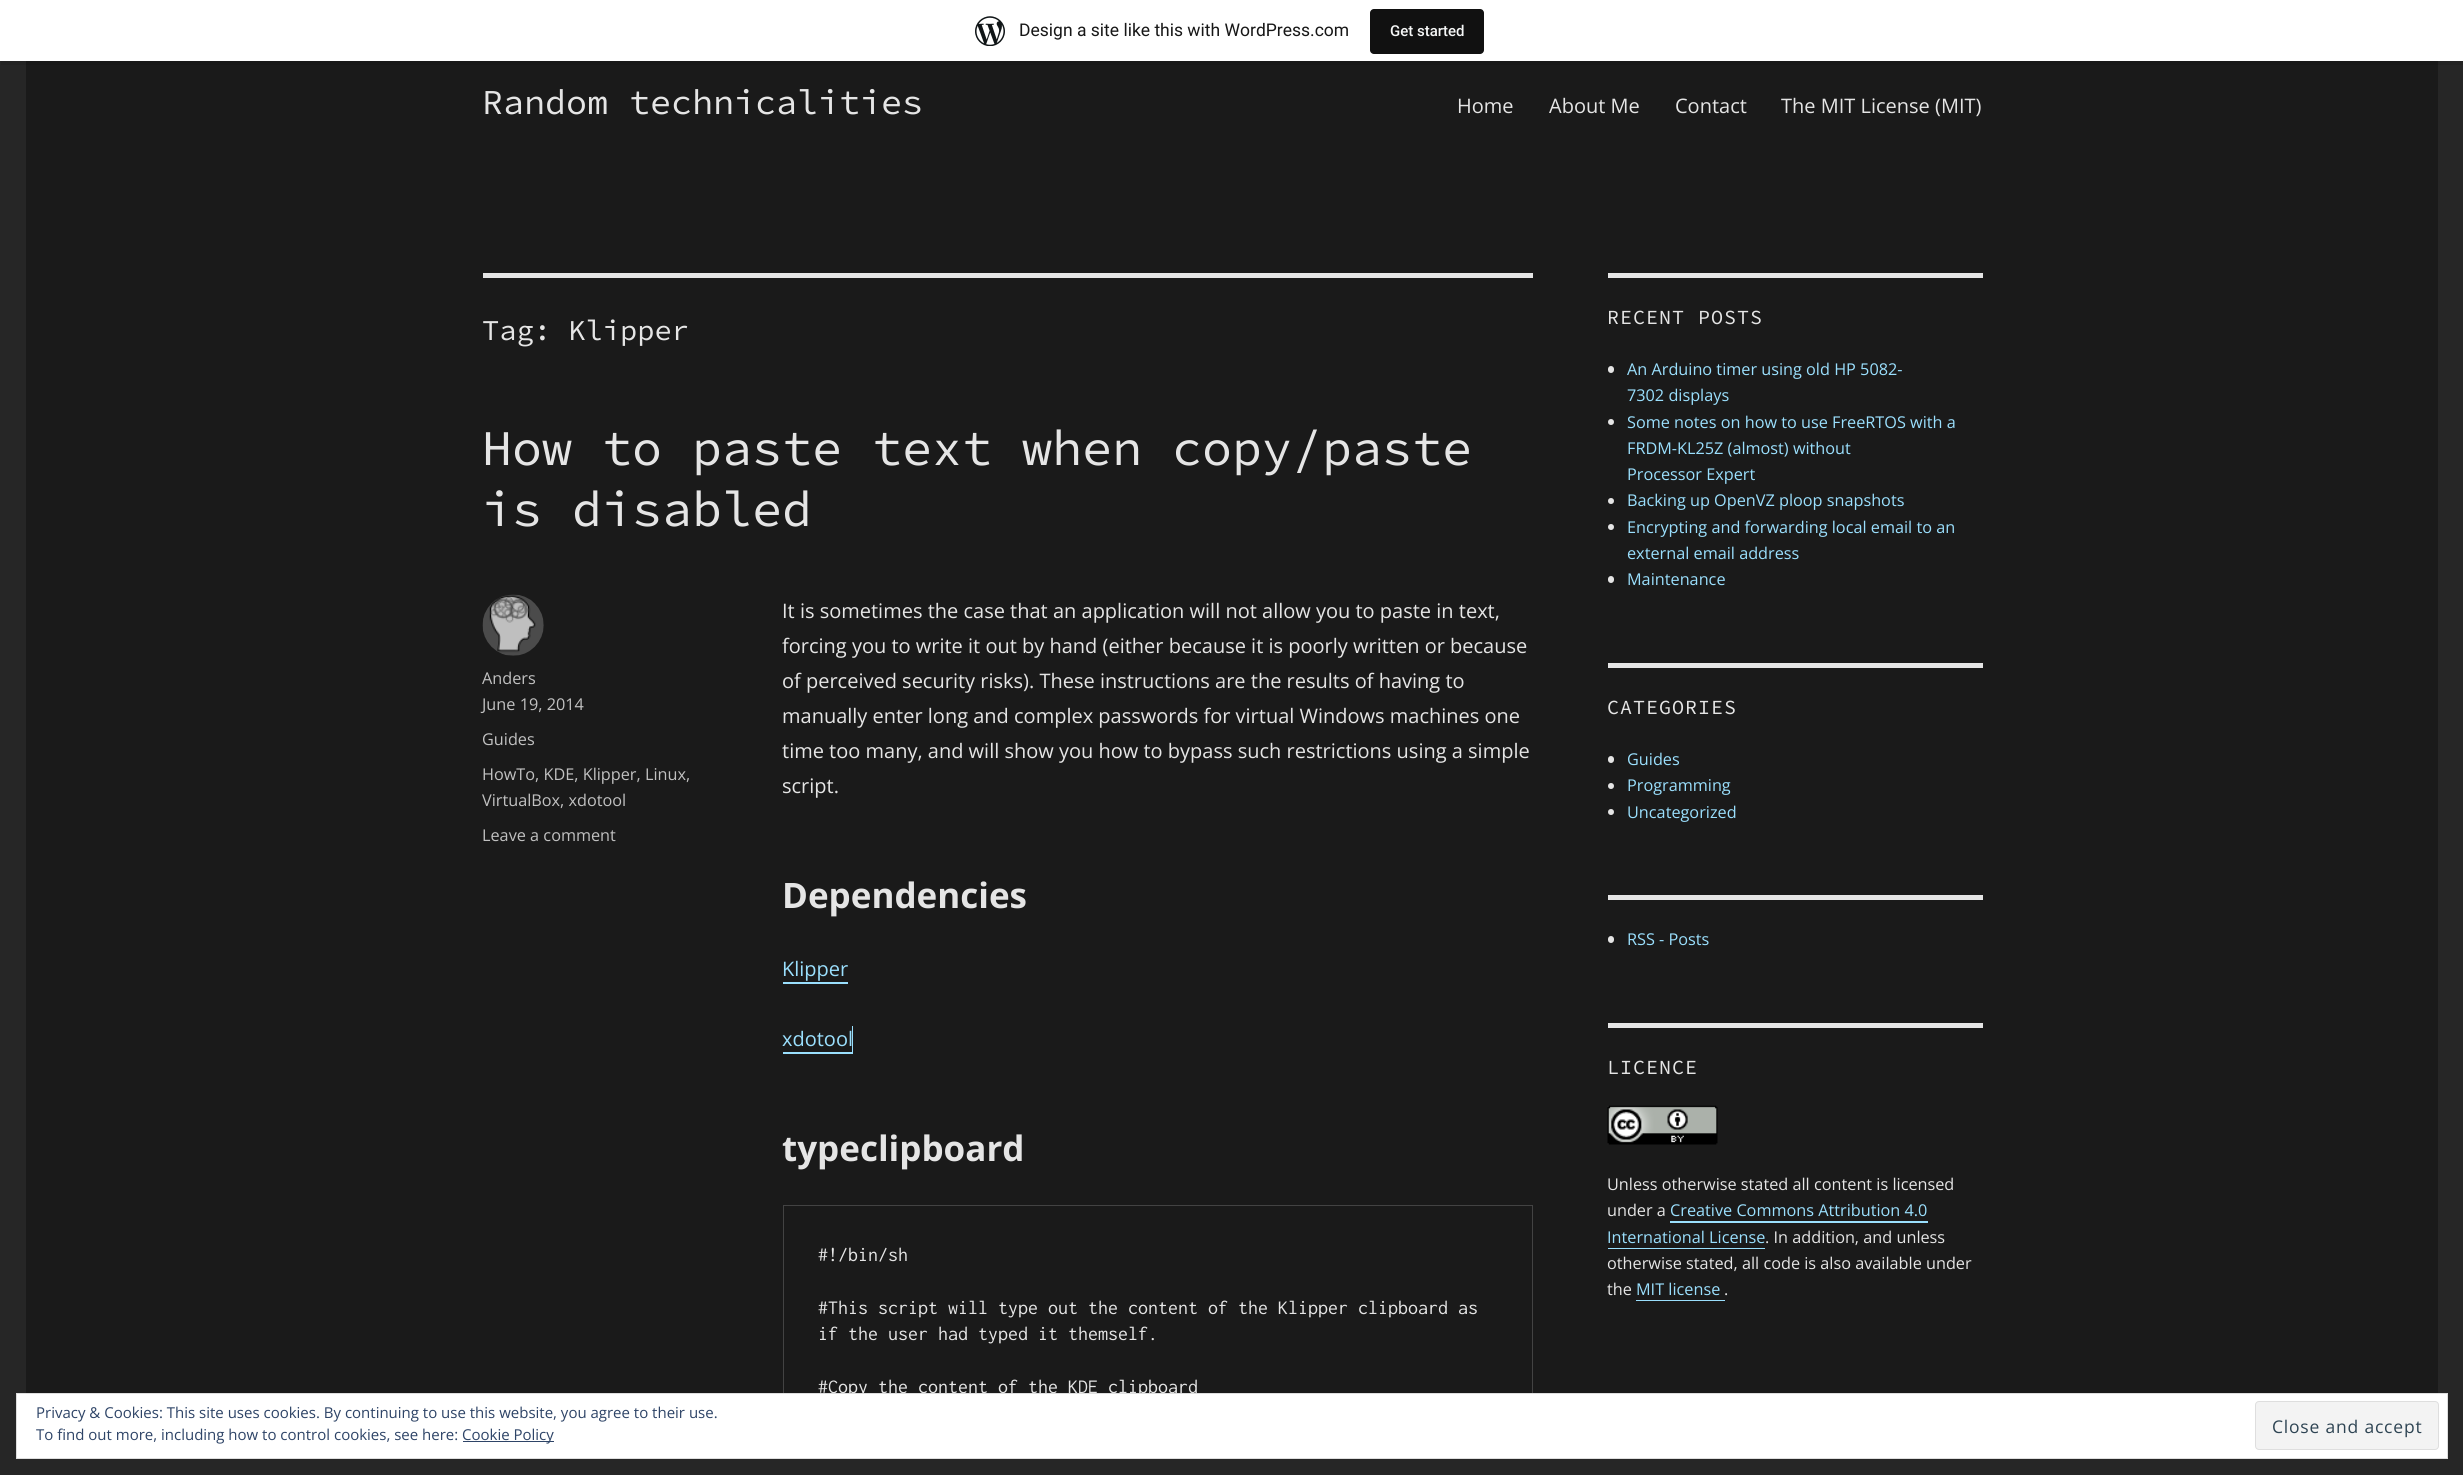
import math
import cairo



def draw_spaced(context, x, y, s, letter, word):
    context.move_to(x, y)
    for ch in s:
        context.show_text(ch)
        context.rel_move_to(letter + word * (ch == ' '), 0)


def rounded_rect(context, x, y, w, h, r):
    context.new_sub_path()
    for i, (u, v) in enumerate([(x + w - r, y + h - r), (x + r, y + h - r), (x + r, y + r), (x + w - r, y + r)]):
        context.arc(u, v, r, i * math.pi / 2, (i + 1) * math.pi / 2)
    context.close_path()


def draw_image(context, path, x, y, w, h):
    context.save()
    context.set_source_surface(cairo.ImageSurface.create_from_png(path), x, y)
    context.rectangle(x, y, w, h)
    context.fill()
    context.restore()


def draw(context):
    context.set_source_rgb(38 / 255, 38 / 255, 38 / 255)
    context.paint()
    context.set_source_rgb(26 / 255, 26 / 255, 26 / 255)
    context.rectangle(26, 61, 2412, 1332)
    context.fill()
    context.set_source_rgba(0, 0, 0, 0.08)
    context.new_path()
    context.move_to(1, 61)
    context.line_to(1, 65)
    context.line_to(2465, 65)
    context.line_to(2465, 4)
    context.line_to(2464, 4)
    context.line_to(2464, 61)
    context.close_path()
    context.fill()
    context.set_source_rgb(1, 1, 1)
    context.rectangle(0, 0, 2463, 61)
    context.fill()
    draw_image(context, "images/1.png", 975, 16, 30, 30)
    context.set_source_rgb(17 / 255, 17 / 255, 17 / 255)
    rounded_rect(context, 1370, 9, 114, 45, 4)
    context.fill()
    context.set_source_rgb(229 / 255, 229 / 255, 229 / 255)
    context.rectangle(483, 273, 1050, 5)
    context.fill()
    draw_image(context, "images/2.png", 482, 594, 62, 62)
    context.set_source_rgb(154 / 255, 223 / 255, 253 / 255)
    context.new_path()
    context.move_to(783, 982)
    context.line_to(783, 984)
    context.line_to(848, 984)
    context.line_to(848, 956)
    context.line_to(848, 982)
    context.close_path()
    context.fill()
    context.new_path()
    context.move_to(783, 1052)
    context.line_to(783, 1054)
    context.line_to(853, 1054)
    context.line_to(853, 1026)
    context.line_to(852, 1026)
    context.line_to(852, 1052)
    context.close_path()
    context.fill()
    context.rectangle(783.5, 1205.5, 749, 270)
    context.set_source_rgb(67 / 255, 67 / 255, 67 / 255)
    context.set_line_width(1)
    context.stroke()
    context.set_source_rgb(229 / 255, 229 / 255, 229 / 255)
    context.rectangle(1608, 273, 375, 5)
    context.fill()
    rounded_rect(context, 1608, 366, 6, 7, 3)
    context.fill()
    context.arc(1611, 422, 3, 0, 2 * math.pi)
    context.fill()
    context.arc(1611, 501, 3, 0, 2 * math.pi)
    context.fill()
    context.arc(1611, 527, 3, 0, 2 * math.pi)
    context.fill()
    rounded_rect(context, 1608, 576, 6, 7, 3)
    context.fill()
    context.rectangle(1608, 663, 375, 5)
    context.fill()
    rounded_rect(context, 1608, 756, 6, 7, 3)
    context.fill()
    context.arc(1611, 786, 3, 0, 2 * math.pi)
    context.fill()
    context.arc(1611, 812, 3, 0, 2 * math.pi)
    context.fill()
    context.rectangle(1608, 895, 375, 5)
    context.fill()
    rounded_rect(context, 1608, 936, 6, 7, 3)
    context.fill()
    context.rectangle(1608, 1023, 375, 5)
    context.fill()
    draw_image(context, "images/3.png", 1607, 1105, 111, 40)
    context.set_source_rgb(154 / 255, 223 / 255, 253 / 255)
    context.new_path()
    context.move_to(1670, 1221)
    context.line_to(1670, 1223)
    context.line_to(1928, 1223)
    context.line_to(1928, 1200)
    context.line_to(1928, 1221)
    context.close_path()
    context.fill()
    context.rectangle(1608, 1248, 157, 1)
    context.fill()
    context.new_path()
    context.move_to(1636, 1279)
    context.line_to(1636, 1301)
    context.line_to(1725, 1301)
    context.line_to(1725, 1300)
    context.line_to(1636, 1300)
    context.close_path()
    context.fill()
    context.set_source_rgb(38 / 255, 38 / 255, 38 / 255)
    context.rectangle(783, 1449, 750, 26)
    context.fill()
    context.select_font_face("Roboto")
    context.set_font_size(17.5)
    context.set_source_rgb(23 / 255, 23 / 255, 23 / 255)
    context.move_to(1019, 36)
    context.show_text("Design a site like this with WordPress.com")
    context.select_font_face("Roboto Medium")
    context.set_font_size(15)
    context.set_source_rgb(246 / 255, 247 / 255, 247 / 255)
    context.move_to(1390, 36)
    context.show_text("Get started")
    context.select_font_face("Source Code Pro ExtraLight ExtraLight")
    context.set_font_size(35)
    context.set_source_rgb(229 / 255, 229 / 255, 229 / 255)
    context.move_to(482, 114)
    context.show_text("Random technicalities")
    context.select_font_face("Open Sans")
    context.set_font_size(20)
    context.move_to(1457, 113)
    context.show_text("Home")
    context.move_to(1549, 113)
    context.show_text("About Me")
    context.move_to(1675, 113)
    context.show_text("Contact")
    context.move_to(1781, 113)
    context.show_text("The MIT License (MIT)")
    context.select_font_face("Source Code Pro ExtraLight ExtraLight")
    context.set_font_size(28.75)
    context.move_to(482, 340)
    context.show_text("Tag: Klipper")
    context.set_font_size(50)
    context.move_to(482, 465)
    context.show_text("How to paste text when copy/paste")
    context.move_to(482, 526)
    context.show_text("is disabled")
    context.select_font_face("Open Sans")
    context.set_font_size(16.25)
    context.set_source_rgb(193 / 255, 193 / 255, 193 / 255)
    context.move_to(482, 684)
    context.show_text("Anders")
    context.move_to(482, 710)
    context.show_text("June 19, 2014")
    context.move_to(482, 745)
    context.show_text("Guides")
    context.move_to(482, 780)
    context.show_text("HowTo, KDE, Klipper, Linux,")
    context.move_to(482, 806)
    context.show_text("VirtualBox, xdotool")
    context.move_to(482, 841)
    context.show_text("Leave a comment")
    context.set_font_size(20)
    context.set_source_rgb(229 / 255, 229 / 255, 229 / 255)
    context.move_to(782, 618)
    context.show_text("It is sometimes the case that an application will not allow you to paste in text,")
    context.move_to(782, 653)
    context.show_text("forcing you to write it out by hand (either because it is poorly written or because")
    context.move_to(782, 688)
    context.show_text("of perceived security risks). These instructions are the results of having to")
    context.move_to(782, 723)
    context.show_text("manually enter long and complex passwords for virtual Windows machines one")
    context.move_to(782, 758)
    context.show_text("time too many, and will show you how to bypass such restrictions using a simple")
    context.move_to(782, 793)
    context.show_text("script.")
    context.select_font_face("Open Sans", cairo.FontSlant.NORMAL, cairo.FontWeight.BOLD)
    context.set_font_size(35)
    context.move_to(782, 908)
    context.show_text("Dependencies")
    context.select_font_face("Open Sans")
    context.set_font_size(20)
    context.set_source_rgb(154 / 255, 223 / 255, 253 / 255)
    context.move_to(782, 976)
    context.show_text("Klipper")
    context.move_to(782, 1046)
    context.show_text("xdotool")
    context.select_font_face("Open Sans", cairo.FontSlant.NORMAL, cairo.FontWeight.BOLD)
    context.set_font_size(35)
    context.set_source_rgb(229 / 255, 229 / 255, 229 / 255)
    context.move_to(782, 1161)
    context.show_text("typeclipboard")
    context.select_font_face("Inconsolata")
    context.set_font_size(20)
    context.move_to(818, 1261)
    context.show_text("#!/bin/sh")
    context.move_to(818, 1314)
    context.show_text("#This script will type out the content of the Klipper clipboard as")
    context.move_to(818, 1340)
    context.show_text("if the user had typed it themself.")
    context.move_to(818, 1393)
    context.show_text("#Copy the content of the KDE clipboard")
    context.select_font_face("Source Code Pro ExtraLight ExtraLight")
    draw_spaced(context, 1607, 324, "RECENT POSTS", 1, 0)
    context.select_font_face("Open Sans")
    context.set_font_size(16.25)
    context.set_source_rgb(154 / 255, 223 / 255, 253 / 255)
    context.move_to(1627, 375)
    context.show_text("An Arduino timer using old HP 5082-")
    context.move_to(1627, 401)
    context.show_text("7302 displays")
    context.move_to(1627, 428)
    context.show_text("Some notes on how to use FreeRTOS with a")
    context.move_to(1627, 454)
    context.show_text("FRDM-KL25Z (almost) without")
    context.move_to(1627, 480)
    context.show_text("Processor Expert")
    context.move_to(1627, 506)
    context.show_text("Backing up OpenVZ ploop snapshots")
    context.move_to(1627, 533)
    context.show_text("Encrypting and forwarding local email to an")
    context.move_to(1627, 559)
    context.show_text("external email address")
    context.move_to(1627, 585)
    context.show_text("Maintenance")
    context.select_font_face("Source Code Pro ExtraLight ExtraLight")
    context.set_font_size(20)
    context.set_source_rgb(229 / 255, 229 / 255, 229 / 255)
    draw_spaced(context, 1607, 714, "CATEGORIES", 1, 0)
    context.select_font_face("Open Sans")
    context.set_font_size(16.25)
    context.set_source_rgb(154 / 255, 223 / 255, 253 / 255)
    context.move_to(1627, 765)
    context.show_text("Guides")
    context.move_to(1627, 791)
    context.show_text("Programming")
    context.move_to(1627, 818)
    context.show_text("Uncategorized")
    context.move_to(1627, 945)
    context.show_text("RSS - Posts")
    context.select_font_face("Source Code Pro ExtraLight ExtraLight")
    context.set_font_size(20)
    context.set_source_rgb(229 / 255, 229 / 255, 229 / 255)
    draw_spaced(context, 1607, 1074, "LICENCE", 1, 0)
    context.select_font_face("Open Sans")
    context.set_font_size(16.25)
    context.move_to(1607, 1190)
    context.show_text("Unless otherwise stated all content is licensed")
    context.move_to(1607, 1216)
    context.show_text("under a")
    context.set_source_rgb(154 / 255, 223 / 255, 253 / 255)
    context.move_to(1670, 1216)
    context.show_text("Creative Commons Attribution 4.0")
    context.move_to(1607, 1243)
    context.show_text("International License")
    context.set_source_rgb(229 / 255, 229 / 255, 229 / 255)
    context.move_to(1765, 1243)
    context.show_text(". In addition, and unless")
    context.move_to(1607, 1269)
    context.show_text("otherwise stated, all code is also available under")
    context.move_to(1607, 1295)
    context.show_text("the")
    context.set_source_rgb(154 / 255, 223 / 255, 253 / 255)
    context.move_to(1636, 1295)
    context.show_text("MIT license")
    context.set_source_rgb(229 / 255, 229 / 255, 229 / 255)
    context.move_to(1724, 1295)
    context.show_text(".")
    context.set_source_rgb(1, 1, 1)
    context.rectangle(16.5, 1393.5, 2431, 65)
    context.fill_preserve()
    context.set_source_rgb(222 / 255, 222 / 255, 222 / 255)
    context.stroke()
    context.set_font_size(15)
    context.set_source_rgb(46 / 255, 68 / 255, 103 / 255)
    context.move_to(36, 1418)
    context.show_text("Privacy & Cookies: This site uses cookies. By continuing to use this website, you agree to their use.")
    context.move_to(36, 1440)
    context.show_text("To find out more, including how to control cookies, see here:")
    context.rectangle(463, 1441, 91, 1)
    context.fill()
    context.move_to(462, 1440)
    context.show_text("Cookie Policy")
    context.set_source_rgb(243 / 255, 243 / 255, 243 / 255)
    rounded_rect(context, 2255.5, 1401.5, 183, 48, 3.5)
    context.fill_preserve()
    context.set_source_rgb(222 / 255, 222 / 255, 222 / 255)
    context.stroke()
    context.set_font_size(17.5)
    context.set_source_rgb(46 / 255, 68 / 255, 83 / 255)
    draw_spaced(context, 2272, 1433, "Close and accept", 0.8, 0)


surface = cairo.ImageSurface(cairo.Format.RGB24, 2463, 1475)
context = cairo.Context(surface)
options = cairo.FontOptions()
options.set_hint_metrics(cairo.HintMetrics.OFF)
options.set_hint_style(cairo.HintStyle.NONE)
context.set_font_options(options)
context.set_miter_limit(4)
draw(context)
surface.write_to_png("out.png")
